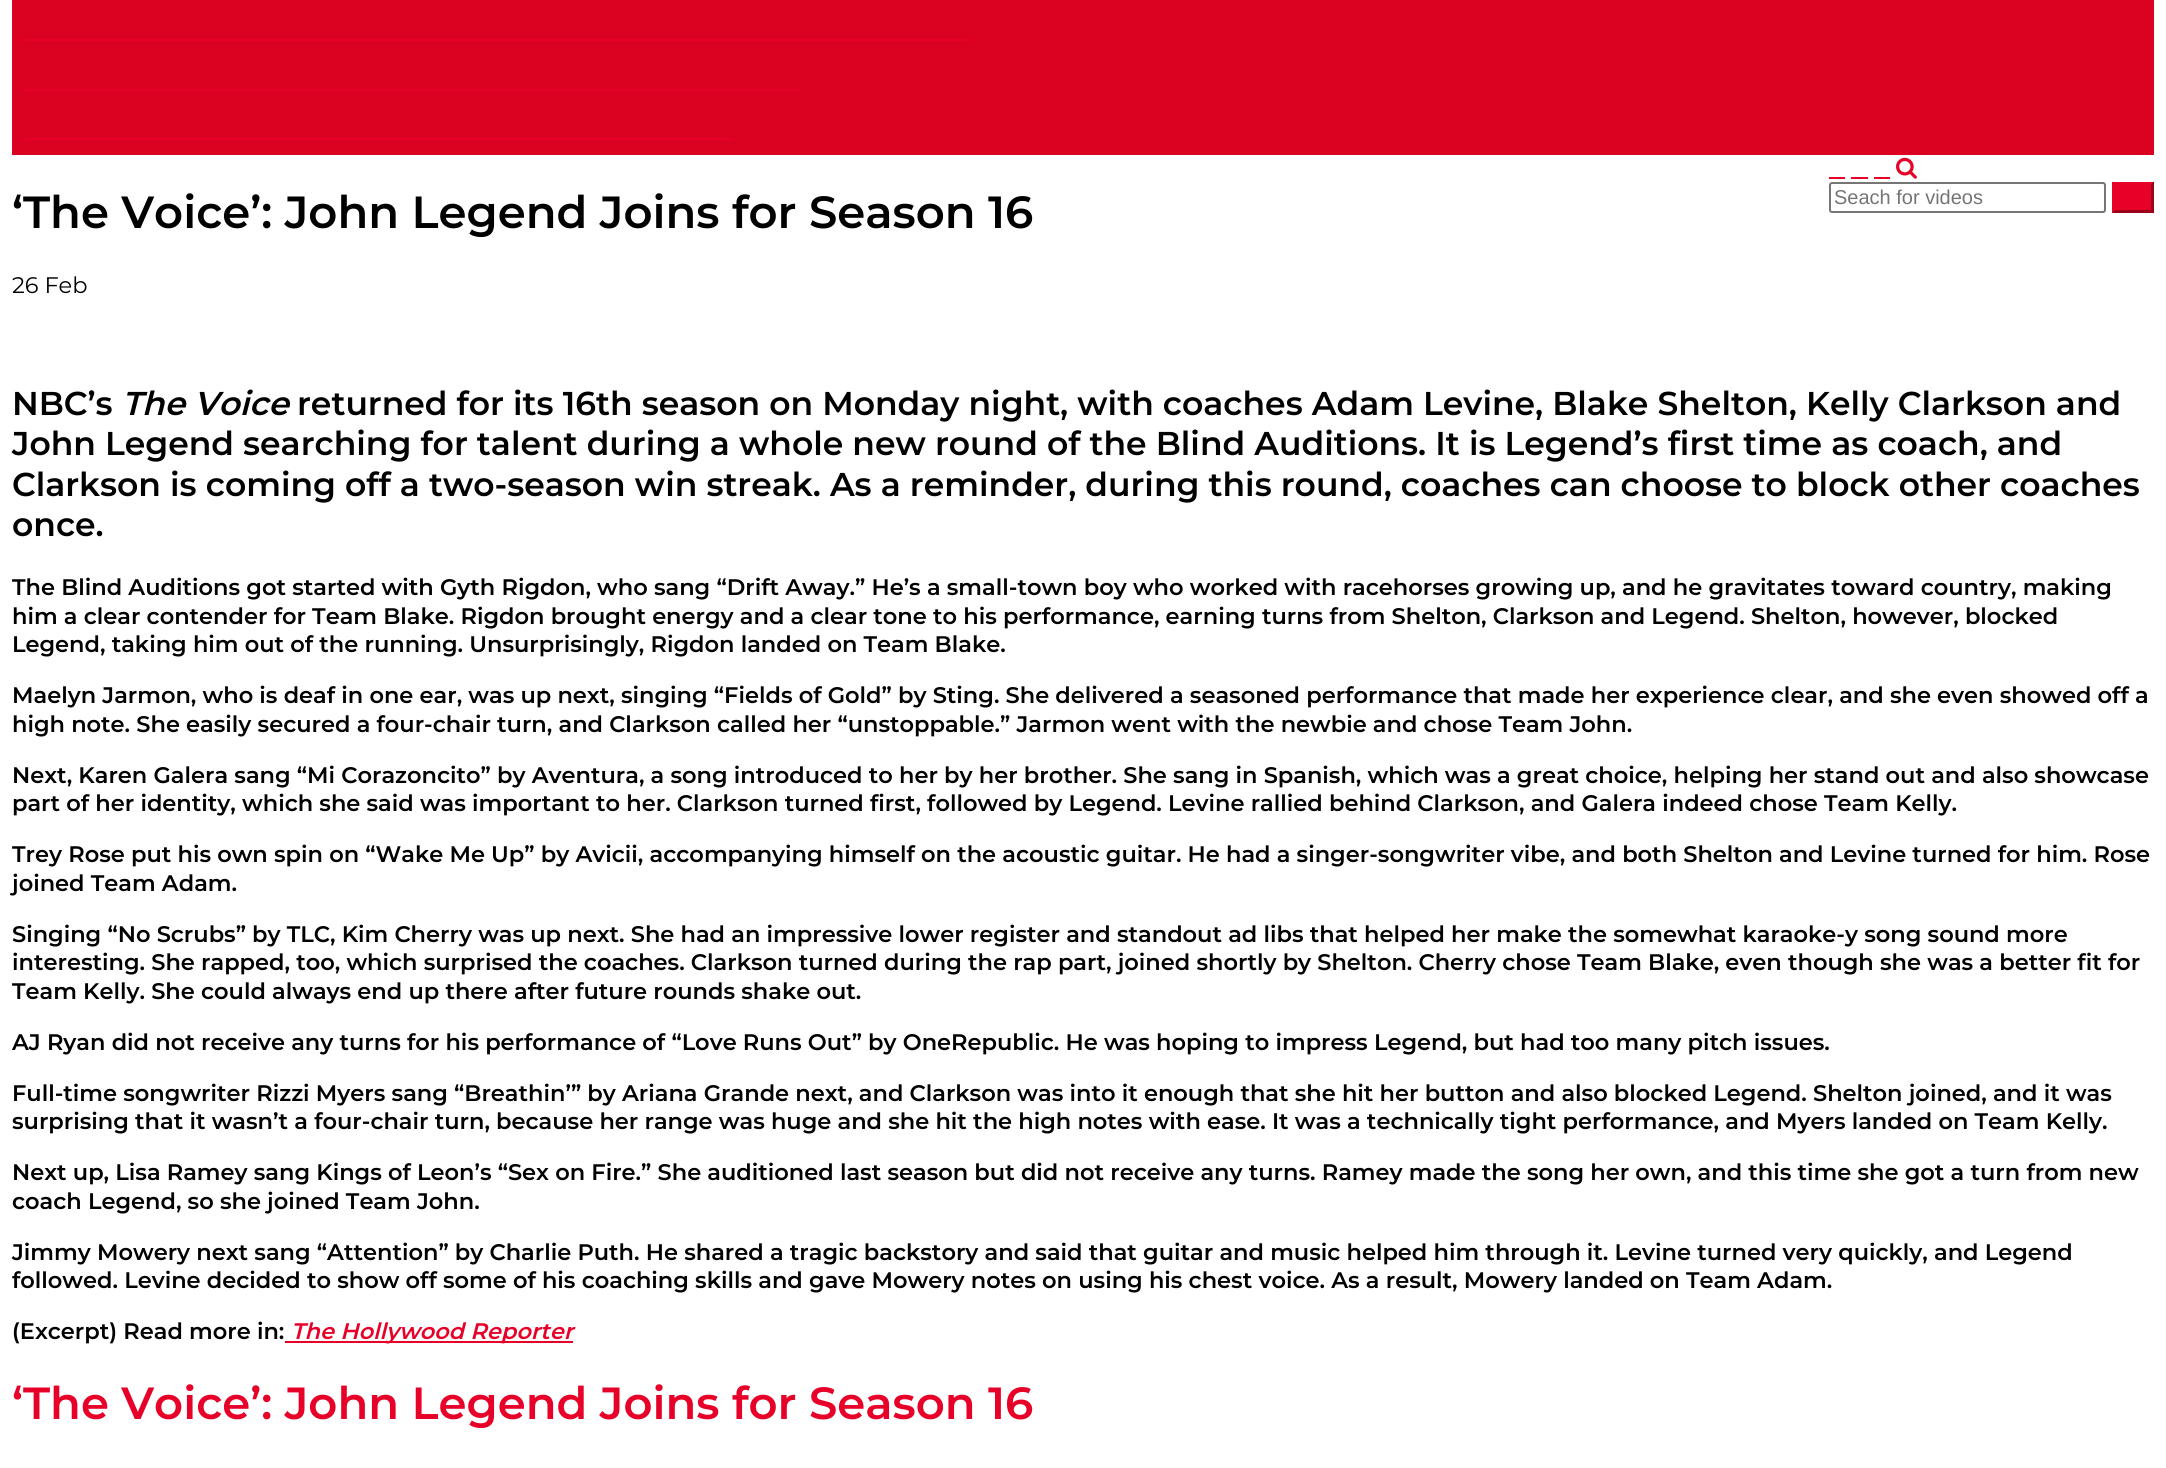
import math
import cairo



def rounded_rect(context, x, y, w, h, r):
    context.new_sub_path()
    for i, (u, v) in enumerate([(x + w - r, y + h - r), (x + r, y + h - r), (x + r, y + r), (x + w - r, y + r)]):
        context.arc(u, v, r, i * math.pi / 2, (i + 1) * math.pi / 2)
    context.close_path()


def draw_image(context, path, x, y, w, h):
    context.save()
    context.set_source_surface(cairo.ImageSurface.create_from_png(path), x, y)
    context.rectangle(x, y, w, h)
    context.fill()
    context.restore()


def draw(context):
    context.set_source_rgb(1, 1, 1)
    context.paint()
    context.set_source_rgb(218 / 255, 2 / 255, 32 / 255)
    context.rectangle(12, 0, 2142, 155)
    context.fill()
    context.set_source_rgb(231 / 255, 0, 39 / 255)
    context.rectangle(23, 39, 946, 2)
    context.fill()
    context.rectangle(23, 89, 778, 2)
    context.fill()
    context.rectangle(23, 138, 709, 2)
    context.fill()
    context.rectangle(1829, 177, 16, 2)
    context.fill()
    context.rectangle(1851, 177, 17, 2)
    context.fill()
    context.rectangle(1874, 177, 16, 2)
    context.fill()
    draw_image(context, "images/1.png", 1896, 157, 21, 22)
    rounded_rect(context, 1830, 183, 275, 29, 2)
    context.set_source_rgb(118 / 255, 118 / 255, 118 / 255)
    context.stroke()
    context.set_source_rgb(231 / 255, 0, 39 / 255)
    context.rectangle(2112, 182, 42, 31)
    context.fill()
    context.set_source_rgb(154 / 255, 0, 26 / 255)
    context.new_path()
    context.move_to(2154, 181.5)
    context.line_to(2154, 213)
    context.line_to(2151, 210)
    context.line_to(2151, 184.5)
    context.close_path()
    context.fill()
    context.new_path()
    context.move_to(2154, 213)
    context.line_to(2112, 213)
    context.line_to(2115, 210)
    context.line_to(2151, 210)
    context.close_path()
    context.fill()
    context.set_source_rgb(231 / 255, 0, 39 / 255)
    context.new_path()
    context.move_to(2112, 213)
    context.line_to(2112, 181.5)
    context.line_to(2115, 184.5)
    context.line_to(2115, 210)
    context.close_path()
    context.fill()
    context.rectangle(285, 1341, 288, 2)
    context.fill()
    context.select_font_face("Montserrat SemiBold")
    context.set_font_size(45)
    context.set_source_rgb(0, 0, 0)
    context.move_to(12, 228)
    context.show_text("‘The Voice’: John Legend Joins for Season 16")
    context.select_font_face("Montserrat")
    context.set_font_size(22.5)
    context.move_to(12, 293)
    context.show_text("26 Feb")
    context.select_font_face("Liberation Sans")
    context.set_font_size(20)
    context.set_source_rgb(117 / 255, 117 / 255, 117 / 255)
    context.move_to(1834, 204)
    context.show_text("Seach for videos")
    context.select_font_face("Montserrat SemiBold")
    context.set_font_size(33)
    context.set_source_rgb(0, 0, 0)
    context.move_to(12, 415)
    context.show_text("NBC’s")
    context.select_font_face("Montserrat SemiBold", cairo.FontSlant.ITALIC)
    context.move_to(122, 415)
    context.show_text("The Voice")
    context.select_font_face("Montserrat SemiBold")
    context.move_to(297, 415)
    context.show_text("returned for its 16th season on Monday night, with coaches Adam Levine, Blake Shelton, Kelly Clarkson and")
    context.move_to(12, 455)
    context.show_text("John Legend searching for talent during a whole new round of the Blind Auditions. It is Legend’s first time as coach, and")
    context.move_to(12, 496)
    context.show_text("Clarkson is coming off a two-season win streak. As a reminder, during this round, coaches can choose to block other coaches")
    context.move_to(12, 536)
    context.show_text("once.")
    context.set_font_size(22.5)
    context.move_to(12, 595)
    context.show_text("The Blind Auditions got started with Gyth Rigdon, who sang “Drift Away.” He’s a small-town boy who worked with racehorses growing up, and he gravitates toward country, making")
    context.move_to(12, 624)
    context.show_text("him a clear contender for Team Blake. Rigdon brought energy and a clear tone to his performance, earning turns from Shelton, Clarkson and Legend. Shelton, however, blocked")
    context.move_to(12, 652)
    context.show_text("Legend, taking him out of the running. Unsurprisingly, Rigdon landed on Team Blake.")
    context.move_to(12, 703)
    context.show_text("Maelyn Jarmon, who is deaf in one ear, was up next, singing “Fields of Gold” by Sting. She delivered a seasoned performance that made her experience clear, and she even showed off a")
    context.move_to(12, 732)
    context.show_text("high note. She easily secured a four-chair turn, and Clarkson called her “unstoppable.” Jarmon went with the newbie and chose Team John.")
    context.move_to(12, 783)
    context.show_text("Next, Karen Galera sang “Mi Corazoncito” by Aventura, a song introduced to her by her brother. She sang in Spanish, which was a great choice, helping her stand out and also showcase")
    context.move_to(12, 811)
    context.show_text("part of her identity, which she said was important to her. Clarkson turned first, followed by Legend. Levine rallied behind Clarkson, and Galera indeed chose Team Kelly.")
    context.move_to(12, 862)
    context.show_text("Trey Rose put his own spin on “Wake Me Up” by Avicii, accompanying himself on the acoustic guitar. He had a singer-songwriter vibe, and both Shelton and Levine turned for him. Rose")
    context.move_to(12, 891)
    context.show_text("joined Team Adam.")
    context.move_to(12, 942)
    context.show_text("Singing “No Scrubs” by TLC, Kim Cherry was up next. She had an impressive lower register and standout ad libs that helped her make the somewhat karaoke-y song sound more")
    context.move_to(12, 970)
    context.show_text("interesting. She rapped, too, which surprised the coaches. Clarkson turned during the rap part, joined shortly by Shelton. Cherry chose Team Blake, even though she was a better fit for")
    context.move_to(12, 999)
    context.show_text("Team Kelly. She could always end up there after future rounds shake out.")
    context.move_to(12, 1050)
    context.show_text("AJ Ryan did not receive any turns for his performance of “Love Runs Out” by OneRepublic. He was hoping to impress Legend, but had too many pitch issues.")
    context.move_to(12, 1101)
    context.show_text("Full-time songwriter Rizzi Myers sang “Breathin’” by Ariana Grande next, and Clarkson was into it enough that she hit her button and also blocked Legend. Shelton joined, and it was")
    context.move_to(12, 1129)
    context.show_text("surprising that it wasn’t a four-chair turn, because her range was huge and she hit the high notes with ease. It was a technically tight performance, and Myers landed on Team Kelly.")
    context.move_to(12, 1180)
    context.show_text("Next up, Lisa Ramey sang Kings of Leon’s “Sex on Fire.” She auditioned last season but did not receive any turns. Ramey made the song her own, and this time she got a turn from new")
    context.move_to(12, 1209)
    context.show_text("coach Legend, so she joined Team John.")
    context.move_to(12, 1260)
    context.show_text("Jimmy Mowery next sang “Attention” by Charlie Puth. He shared a tragic backstory and said that guitar and music helped him through it. Levine turned very quickly, and Legend")
    context.move_to(12, 1288)
    context.show_text("followed. Levine decided to show off some of his coaching skills and gave Mowery notes on using his chest voice. As a result, Mowery landed on Team Adam.")
    context.move_to(12, 1339)
    context.show_text("(Excerpt) Read more in:")
    context.select_font_face("Montserrat SemiBold", cairo.FontSlant.ITALIC)
    context.set_source_rgb(231 / 255, 0, 39 / 255)
    context.move_to(291, 1339)
    context.show_text("The Hollywood Reporter")
    context.select_font_face("Montserrat SemiBold")
    context.set_font_size(45)
    context.move_to(12, 1419)
    context.show_text("‘The Voice’: John Legend Joins for Season 16")


surface = cairo.ImageSurface(cairo.Format.RGB24, 2166, 1468)
context = cairo.Context(surface)
options = cairo.FontOptions()
options.set_hint_metrics(cairo.HintMetrics.OFF)
options.set_hint_style(cairo.HintStyle.NONE)
context.set_font_options(options)
context.set_miter_limit(4)
draw(context)
surface.write_to_png("out.png")
